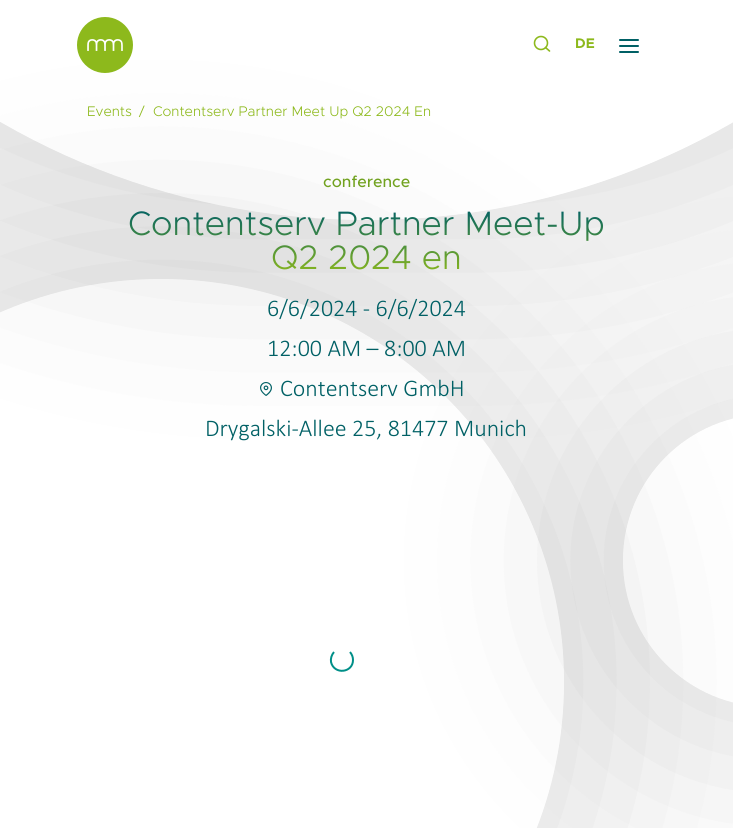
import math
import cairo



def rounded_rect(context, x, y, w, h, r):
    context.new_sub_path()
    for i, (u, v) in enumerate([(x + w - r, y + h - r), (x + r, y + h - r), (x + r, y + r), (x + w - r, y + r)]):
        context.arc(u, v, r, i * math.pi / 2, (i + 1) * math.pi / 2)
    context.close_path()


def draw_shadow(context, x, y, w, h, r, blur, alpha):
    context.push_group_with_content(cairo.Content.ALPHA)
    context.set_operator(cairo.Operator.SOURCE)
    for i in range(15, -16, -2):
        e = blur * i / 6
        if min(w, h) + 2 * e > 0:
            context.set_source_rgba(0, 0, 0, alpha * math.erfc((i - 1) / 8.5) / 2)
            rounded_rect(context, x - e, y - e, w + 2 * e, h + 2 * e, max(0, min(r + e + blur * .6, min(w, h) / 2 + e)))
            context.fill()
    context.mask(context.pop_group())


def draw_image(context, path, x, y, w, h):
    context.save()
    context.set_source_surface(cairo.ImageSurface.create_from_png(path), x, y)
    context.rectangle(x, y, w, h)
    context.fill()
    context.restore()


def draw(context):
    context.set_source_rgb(1, 1, 1)
    context.paint()
    context.save()
    context.set_fill_rule(cairo.FillRule.EVEN_ODD)
    context.new_path()
    context.move_to(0, 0)
    context.line_to(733, 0)
    context.line_to(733, 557)
    context.line_to(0, 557)
    context.close_path()
    context.move_to(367, -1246)
    context.curve_to(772, -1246, 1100, -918, 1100, -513)
    context.curve_to(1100, -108, 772, 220, 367, 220)
    context.curve_to(-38, 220, -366, -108, -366, -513)
    context.curve_to(-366, -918, -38, -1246, 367, -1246)
    context.close_path()
    context.clip()
    context.set_source_rgb(153 / 255, 153 / 255, 153 / 255)
    draw_shadow(context, -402, -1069, 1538, 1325, 769, 100, 0.3)
    context.restore()
    context.save()
    context.set_fill_rule(cairo.FillRule.EVEN_ODD)
    context.new_path()
    context.move_to(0, 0)
    context.line_to(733, 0)
    context.line_to(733, 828)
    context.line_to(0, 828)
    context.close_path()
    context.move_to(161, 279)
    context.curve_to(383.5, 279, 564, 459.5, 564, 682)
    context.curve_to(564, 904.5, 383.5, 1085, 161, 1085)
    context.curve_to(-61.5, 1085, -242, 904.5, -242, 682)
    context.curve_to(-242, 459.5, -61.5, 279, 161, 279)
    context.close_path()
    context.clip()
    context.set_source_rgb(0, 0, 0)
    draw_shadow(context, -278, 243, 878, 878, 439, 100, 0.12)
    context.restore()
    context.save()
    context.set_fill_rule(cairo.FillRule.EVEN_ODD)
    context.new_path()
    context.move_to(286, 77)
    context.line_to(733, 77)
    context.line_to(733, 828)
    context.line_to(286, 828)
    context.close_path()
    context.move_to(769.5, 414)
    context.curve_to(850.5, 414, 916, 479.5, 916, 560.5)
    context.curve_to(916, 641.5, 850.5, 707, 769.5, 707)
    context.curve_to(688.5, 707, 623, 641.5, 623, 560.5)
    context.curve_to(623, 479.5, 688.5, 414, 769.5, 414)
    context.close_path()
    context.clip()
    context.set_source_rgb(0, 0, 0)
    draw_shadow(context, 587, 378, 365, 365, 182.5, 100, 0.12)
    context.restore()
    draw_image(context, "images/1.png", 77, 17, 56, 56)
    context.arc(541, 43, 6.5, 0, 2 * math.pi)
    context.set_source_rgb(141 / 255, 185 / 255, 28 / 255)
    context.set_line_width(1.6)
    context.stroke()
    context.new_path()
    context.move_to(549.5, 51)
    context.line_to(545.5, 47.5)
    context.set_line_cap(cairo.LineCap.ROUND)
    context.set_line_join(cairo.LineJoin.ROUND)
    context.stroke()
    context.set_source_rgb(0, 96 / 255, 101 / 255)
    rounded_rect(context, 619, 39, 20, 2, 1)
    context.fill()
    rounded_rect(context, 619, 45, 20, 2, 1)
    context.fill()
    rounded_rect(context, 619, 51, 20, 2, 1)
    context.fill()
    draw_image(context, "images/2.png", 260, 382, 12, 14)
    context.new_path()
    context.move_to(350, 652)
    context.curve_to(352, 654.5, 353, 657, 353, 660)
    context.curve_to(353, 673, 334, 675, 331, 662)
    context.curve_to(330.5, 658.5, 331.5, 655, 334, 652)
    context.set_source_rgb(0, 143 / 255, 136 / 255)
    context.set_line_width(2)
    context.set_line_cap(cairo.LineCap.BUTT)
    context.set_line_join(cairo.LineJoin.MITER)
    context.stroke()
    context.select_font_face("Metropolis", cairo.FontSlant.NORMAL, cairo.FontWeight.BOLD)
    context.set_font_size(14)
    context.set_source_rgb(141 / 255, 185 / 255, 28 / 255)
    context.move_to(575, 48)
    context.show_text("DE")
    context.select_font_face("Metropolis Light")
    context.move_to(87, 116)
    context.show_text("Events")
    context.move_to(139, 116)
    context.show_text("/")
    context.move_to(153, 116)
    context.show_text("Contentserv Partner Meet Up Q2 2024 En")
    context.select_font_face("Metropolis Medium")
    context.set_font_size(16)
    context.set_source_rgb(113 / 255, 162 / 255, 31 / 255)
    context.move_to(323, 187)
    context.show_text("conference")
    context.select_font_face("Metropolis Light")
    context.set_font_size(34)
    gradient = cairo.LinearGradient(367, 208, 367, 276)
    gradient.add_color_stop_rgba(0, 0, 96 / 255, 101 / 255, 1)
    gradient.add_color_stop_rgba(1, 142 / 255, 186 / 255, 27 / 255, 1)
    context.set_source(gradient)
    context.move_to(128, 235)
    context.show_text("Contentserv Partner Meet-Up")
    context.move_to(271, 269)
    context.show_text("Q2 2024 en")
    context.select_font_face("Calibri Light")
    context.set_font_size(24)
    context.set_source_rgb(0, 96 / 255, 101 / 255)
    context.move_to(267, 316)
    context.show_text("6/6/2024 - 6/6/2024")
    context.move_to(267, 356)
    context.show_text("12:00 AM – 8:00 AM")
    context.move_to(280, 396)
    context.show_text("Contentserv GmbH")
    context.move_to(205, 436)
    context.show_text("Drygalski-Allee 25, 81477 Munich")


surface = cairo.ImageSurface(cairo.Format.RGB24, 733, 828)
context = cairo.Context(surface)
options = cairo.FontOptions()
options.set_hint_metrics(cairo.HintMetrics.OFF)
options.set_hint_style(cairo.HintStyle.NONE)
context.set_font_options(options)
context.set_miter_limit(4)
draw(context)
surface.write_to_png("out.png")
